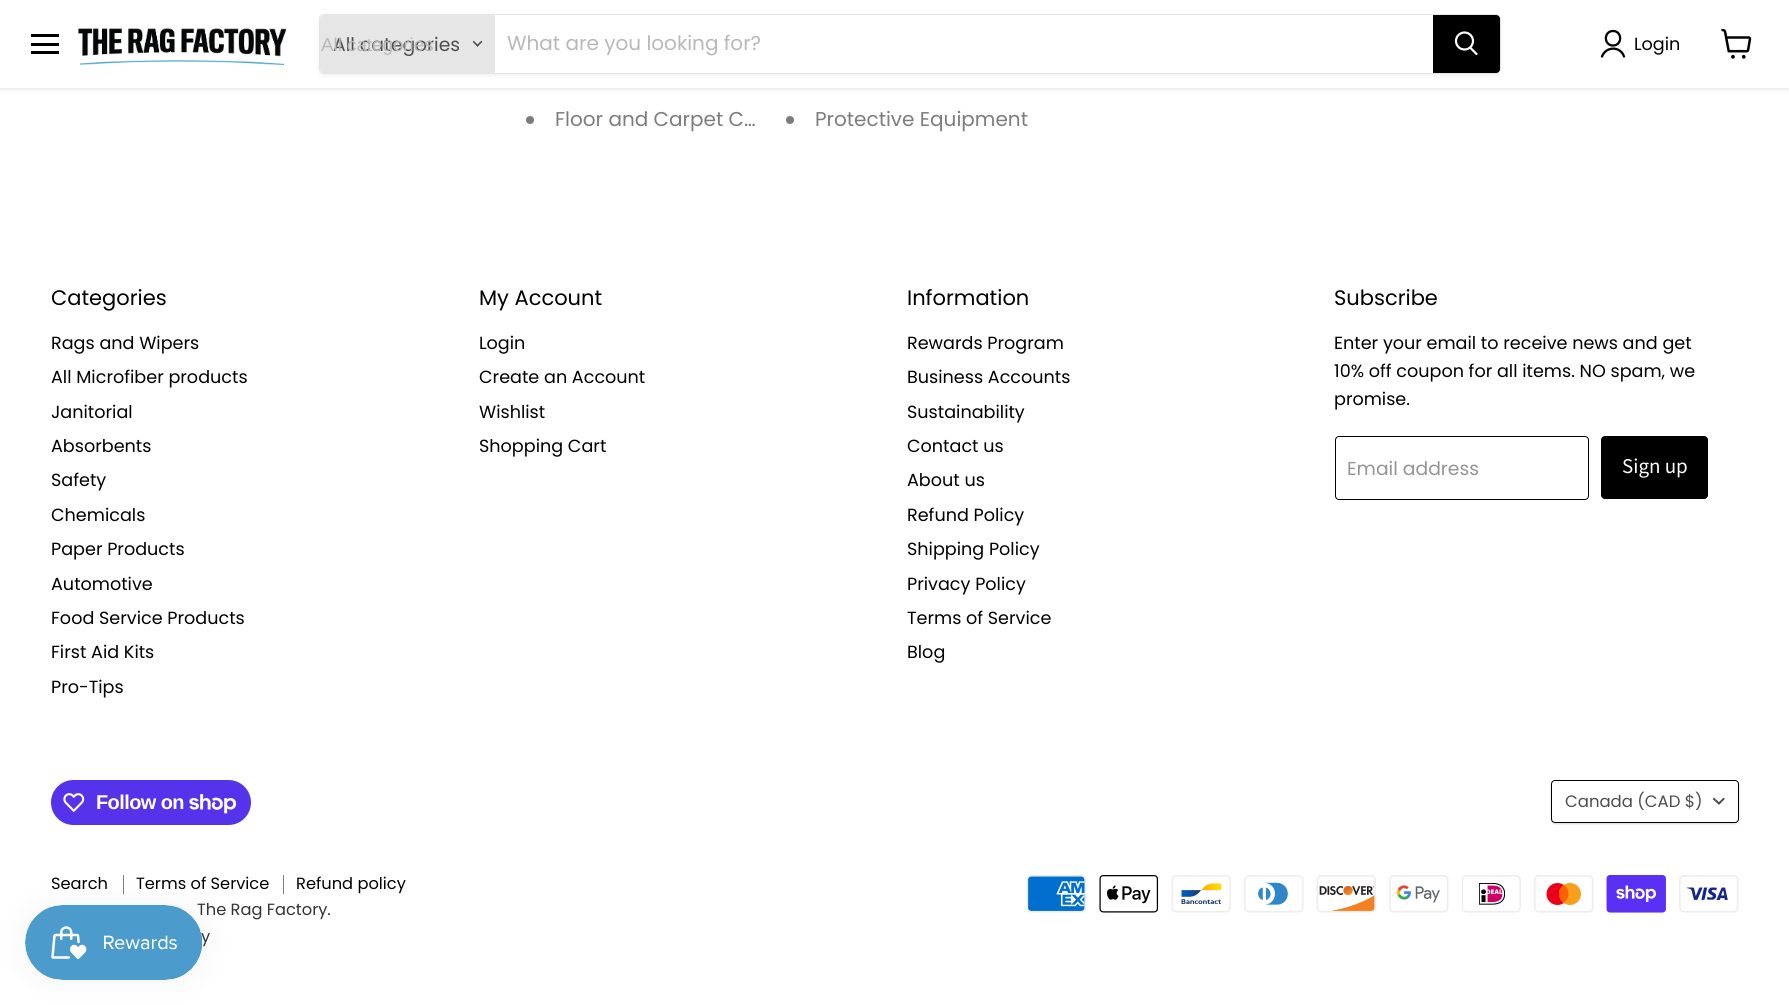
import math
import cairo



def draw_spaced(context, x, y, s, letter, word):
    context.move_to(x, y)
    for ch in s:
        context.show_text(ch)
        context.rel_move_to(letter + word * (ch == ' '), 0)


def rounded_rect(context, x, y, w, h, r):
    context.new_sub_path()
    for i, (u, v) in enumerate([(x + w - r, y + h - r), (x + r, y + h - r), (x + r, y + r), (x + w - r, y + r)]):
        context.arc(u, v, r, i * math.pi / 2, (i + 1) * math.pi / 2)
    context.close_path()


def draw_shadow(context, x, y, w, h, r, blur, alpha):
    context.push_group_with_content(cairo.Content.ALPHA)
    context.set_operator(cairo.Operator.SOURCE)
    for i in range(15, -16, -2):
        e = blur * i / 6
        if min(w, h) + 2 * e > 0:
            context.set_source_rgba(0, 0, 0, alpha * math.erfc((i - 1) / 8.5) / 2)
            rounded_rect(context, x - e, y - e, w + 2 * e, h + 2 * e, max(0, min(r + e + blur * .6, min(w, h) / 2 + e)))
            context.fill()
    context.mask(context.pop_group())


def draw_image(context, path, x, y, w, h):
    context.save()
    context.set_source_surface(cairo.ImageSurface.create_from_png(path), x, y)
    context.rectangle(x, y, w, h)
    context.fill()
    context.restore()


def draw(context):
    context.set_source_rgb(1, 1, 1)
    context.paint()
    context.set_source_rgb(128 / 255, 128 / 255, 128 / 255)
    draw_shadow(context, 0, 1, 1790, 88, 0, 2.5, 0.25)
    context.set_source_rgb(1, 1, 1)
    context.rectangle(0, 0, 1789, 88)
    context.fill()
    context.set_source_rgb(0, 0, 0)
    context.rectangle(31, 34, 28, 3)
    context.fill()
    context.rectangle(31, 43, 28, 3)
    context.fill()
    context.rectangle(31, 51, 28, 3)
    context.fill()
    draw_image(context, "images/1.png", 78, 28, 209, 38)
    context.save()
    context.set_fill_rule(cairo.FillRule.EVEN_ODD)
    context.new_path()
    context.move_to(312, 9)
    context.line_to(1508, 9)
    context.line_to(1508, 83)
    context.line_to(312, 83)
    context.close_path()
    context.move_to(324, 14)
    context.line_to(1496, 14)
    context.curve_to(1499, 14, 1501, 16, 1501, 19)
    context.line_to(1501, 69)
    context.curve_to(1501, 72, 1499, 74, 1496, 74)
    context.line_to(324, 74)
    context.curve_to(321, 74, 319, 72, 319, 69)
    context.line_to(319, 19)
    context.curve_to(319, 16, 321, 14, 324, 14)
    context.close_path()
    context.clip()
    context.set_source_rgb(128 / 255, 128 / 255, 128 / 255)
    draw_shadow(context, 319, 16, 1182, 60, 5, 2, 0.11)
    context.restore()
    rounded_rect(context, 319.5, 14.5, 1181, 59, 4.5)
    context.set_source_rgba(128 / 255, 128 / 255, 128 / 255, 0.2)
    context.set_line_width(1)
    context.stroke()
    context.set_source_rgb(230 / 255, 230 / 255, 230 / 255)
    context.new_path()
    context.move_to(324, 15)
    context.line_to(495, 15)
    context.line_to(495, 73)
    context.line_to(324, 73)
    context.curve_to(322, 73, 320, 71, 320, 69)
    context.line_to(320, 19)
    context.curve_to(320, 17, 322, 15, 324, 15)
    context.close_path()
    context.fill()
    draw_image(context, "images/2.png", 473, 40, 10, 7)
    context.set_source_rgb(0, 0, 0)
    context.new_path()
    context.move_to(1433.5, 15.5)
    context.line_to(1496, 15.5)
    context.curve_to(1498, 15.5, 1499.5, 17, 1499.5, 19)
    context.line_to(1499.5, 69)
    context.curve_to(1499.5, 71, 1498, 72.5, 1496, 72.5)
    context.line_to(1433.5, 72.5)
    context.close_path()
    context.fill_preserve()
    context.stroke()
    context.new_path()
    context.move_to(1476.5, 54)
    context.line_to(1470.5, 48)
    context.set_source_rgb(1, 1, 1)
    context.set_line_width(2.2)
    context.set_line_cap(cairo.LineCap.ROUND)
    context.stroke()
    context.arc(1464.5, 41, 8.5, 0, 2 * math.pi)
    context.set_line_cap(cairo.LineCap.BUTT)
    context.stroke()
    context.new_path()
    context.move_to(1613, 45.5)
    context.curve_to(1622.5, 45.5, 1622.5, 31, 1613, 31)
    context.curve_to(1603.5, 31, 1603.5, 45.5, 1613, 45.5)
    context.close_path()
    context.move_to(1624, 56.5)
    context.curve_to(1620.5, 46, 1606, 46, 1602, 56.5)
    context.set_source_rgb(0, 0, 0)
    context.set_line_width(2.3)
    context.set_line_cap(cairo.LineCap.ROUND)
    context.set_line_join(cairo.LineJoin.ROUND)
    context.stroke()
    draw_image(context, "images/3.png", 1721, 29, 31, 30)
    context.set_source_rgb(124 / 255, 124 / 255, 124 / 255)
    context.arc(530, 120, 4, 0, 2 * math.pi)
    context.fill()
    context.arc(790, 120, 4, 0, 2 * math.pi)
    context.fill()
    rounded_rect(context, 1335.5, 436.5, 253, 63, 3.5)
    context.set_source_rgb(0, 0, 0)
    context.set_line_width(1)
    context.set_line_cap(cairo.LineCap.BUTT)
    context.set_line_join(cairo.LineJoin.MITER)
    context.stroke()
    rounded_rect(context, 1601.5, 436.5, 106, 62, 3.5)
    context.fill_preserve()
    context.stroke()
    context.set_source_rgb(84 / 255, 51 / 255, 235 / 255)
    rounded_rect(context, 51, 780, 200, 45, 22.5)
    context.fill()
    draw_image(context, "images/4.png", 63, 793, 22, 19)
    draw_image(context, "images/5.png", 189, 794, 47, 20)
    context.set_source_rgb(0, 0, 0)
    draw_shadow(context, 1551, 781, 188, 43, 4, 1, 0.15)
    context.set_source_rgb(1, 1, 1)
    rounded_rect(context, 1551.5, 780.5, 187, 42, 3.5)
    context.fill_preserve()
    context.set_source_rgb(0, 0, 0)
    context.stroke()
    context.new_path()
    context.move_to(1719, 803.5)
    context.line_to(1723.5, 799)
    context.move_to(1719, 803.5)
    context.line_to(1714, 799)
    context.set_source_rgb(77 / 255, 77 / 255, 77 / 255)
    context.set_line_width(2)
    context.set_line_cap(cairo.LineCap.SQUARE)
    context.stroke()
    context.set_source_rgb(128 / 255, 128 / 255, 128 / 255)
    context.rectangle(123, 875, 1, 19)
    context.fill()
    context.rectangle(283, 875, 1, 19)
    context.fill()
    draw_image(context, "images/6.png", 1026, 875, 60, 38)
    draw_image(context, "images/7.png", 1099, 875, 60, 38)
    draw_image(context, "images/8.png", 1171, 875, 60, 38)
    draw_image(context, "images/9.png", 1244, 875, 60, 38)
    draw_image(context, "images/10.png", 1316, 875, 60, 38)
    draw_image(context, "images/11.png", 1389, 875, 60, 38)
    draw_image(context, "images/12.png", 1462, 875, 59, 38)
    draw_image(context, "images/13.png", 1534, 875, 60, 38)
    draw_image(context, "images/14.png", 1606, 875, 60, 38)
    draw_image(context, "images/15.png", 1679, 875, 60, 38)
    context.set_source_rgb(0, 0, 0)
    draw_shadow(context, 25, 905, 178, 75, 37.5, 15.5, 0.05)
    context.select_font_face("Poppins")
    context.set_font_size(18.75)
    context.set_source_rgb(77 / 255, 77 / 255, 77 / 255)
    context.move_to(333, 51)
    context.show_text("All categories")
    context.select_font_face("Liberation Sans")
    context.set_source_rgb(184 / 255, 184 / 255, 184 / 255)
    context.move_to(321, 51)
    context.show_text("All categories")
    context.select_font_face("Poppins")
    context.set_font_size(20)
    context.move_to(507, 50)
    context.show_text("What are you looking for?")
    context.set_font_size(17.6)
    context.set_source_rgb(0, 0, 0)
    context.move_to(1634, 50)
    context.show_text("Login")
    context.set_font_size(20)
    context.set_source_rgb(124 / 255, 124 / 255, 124 / 255)
    context.move_to(555, 126)
    context.show_text("Floor and Carpet C…")
    context.move_to(815, 126)
    context.show_text("Protective Equipment")
    context.set_font_size(21)
    context.set_source_rgb(0, 0, 0)
    context.move_to(51, 305)
    context.show_text("Categories")
    context.set_font_size(17.6)
    context.move_to(51, 349)
    context.show_text("Rags and Wipers")
    context.move_to(51, 383)
    context.show_text("All Microfiber products")
    context.move_to(51, 418)
    context.show_text("Janitorial")
    context.move_to(51, 452)
    context.show_text("Absorbents")
    context.move_to(51, 486)
    context.show_text("Safety")
    context.move_to(51, 521)
    context.show_text("Chemicals")
    context.move_to(51, 555)
    context.show_text("Paper Products")
    context.move_to(51, 590)
    context.show_text("Automotive")
    context.move_to(51, 624)
    context.show_text("Food Service Products")
    context.move_to(51, 658)
    context.show_text("First Aid Kits")
    context.move_to(51, 693)
    context.show_text("Pro-Tips")
    context.set_font_size(21)
    context.move_to(479, 305)
    context.show_text("My Account")
    context.set_font_size(17.6)
    context.move_to(479, 349)
    context.show_text("Login")
    context.move_to(479, 383)
    context.show_text("Create an Account")
    context.move_to(479, 418)
    context.show_text("Wishlist")
    context.move_to(479, 452)
    context.show_text("Shopping Cart")
    context.set_font_size(21)
    context.move_to(907, 305)
    context.show_text("Information")
    context.set_font_size(17.6)
    context.move_to(907, 349)
    context.show_text("Rewards Program")
    context.move_to(907, 383)
    context.show_text("Business Accounts")
    context.move_to(907, 418)
    context.show_text("Sustainability")
    context.move_to(907, 452)
    context.show_text("Contact us")
    context.move_to(907, 486)
    context.show_text("About us")
    context.move_to(907, 521)
    context.show_text("Refund Policy")
    context.move_to(907, 555)
    context.show_text("Shipping Policy")
    context.move_to(907, 590)
    context.show_text("Privacy Policy")
    context.move_to(907, 624)
    context.show_text("Terms of Service")
    context.move_to(907, 658)
    context.show_text("Blog")
    context.set_font_size(21)
    context.move_to(1334, 305)
    context.show_text("Subscribe")
    context.set_font_size(17.6)
    context.move_to(1334, 349)
    context.show_text("Enter your email to receive news and get")
    context.move_to(1334, 377)
    context.show_text("10% off coupon for all items. NO spam, we")
    context.move_to(1334, 405)
    context.show_text("promise.")
    context.set_font_size(18.75)
    context.set_source_rgb(148 / 255, 148 / 255, 148 / 255)
    context.move_to(1347, 475)
    context.show_text("Email address")
    context.select_font_face("Source Sans Pro")
    context.set_font_size(21)
    context.set_source_rgb(1, 1, 1)
    context.move_to(1622, 473)
    context.show_text("Sign up")
    context.select_font_face("Liberation Sans", cairo.FontSlant.NORMAL, cairo.FontWeight.BOLD)
    context.set_font_size(20)
    draw_spaced(context, 96, 809, "Follow on", -0.6, 0)
    context.select_font_face("Poppins")
    context.set_font_size(16.5)
    context.set_source_rgb(77 / 255, 77 / 255, 77 / 255)
    context.move_to(1565, 807)
    context.show_text("Canada (CAD $)")
    context.set_font_size(16.25)
    context.set_source_rgb(0, 0, 0)
    context.move_to(51, 889)
    context.show_text("Search")
    context.move_to(136, 889)
    context.show_text("Terms of Service")
    context.move_to(296, 889)
    context.show_text("Refund policy")
    context.set_source_rgb(51 / 255, 51 / 255, 51 / 255)
    context.move_to(197, 915)
    context.show_text("The Rag Factory.")
    context.move_to(201, 942)
    context.show_text("y")
    draw_image(context, "images/16.png", 25, 905, 178, 75)


surface = cairo.ImageSurface(cairo.Format.RGB24, 1789, 1005)
context = cairo.Context(surface)
options = cairo.FontOptions()
options.set_hint_metrics(cairo.HintMetrics.OFF)
options.set_hint_style(cairo.HintStyle.NONE)
context.set_font_options(options)
context.set_miter_limit(4)
draw(context)
surface.write_to_png("out.png")
